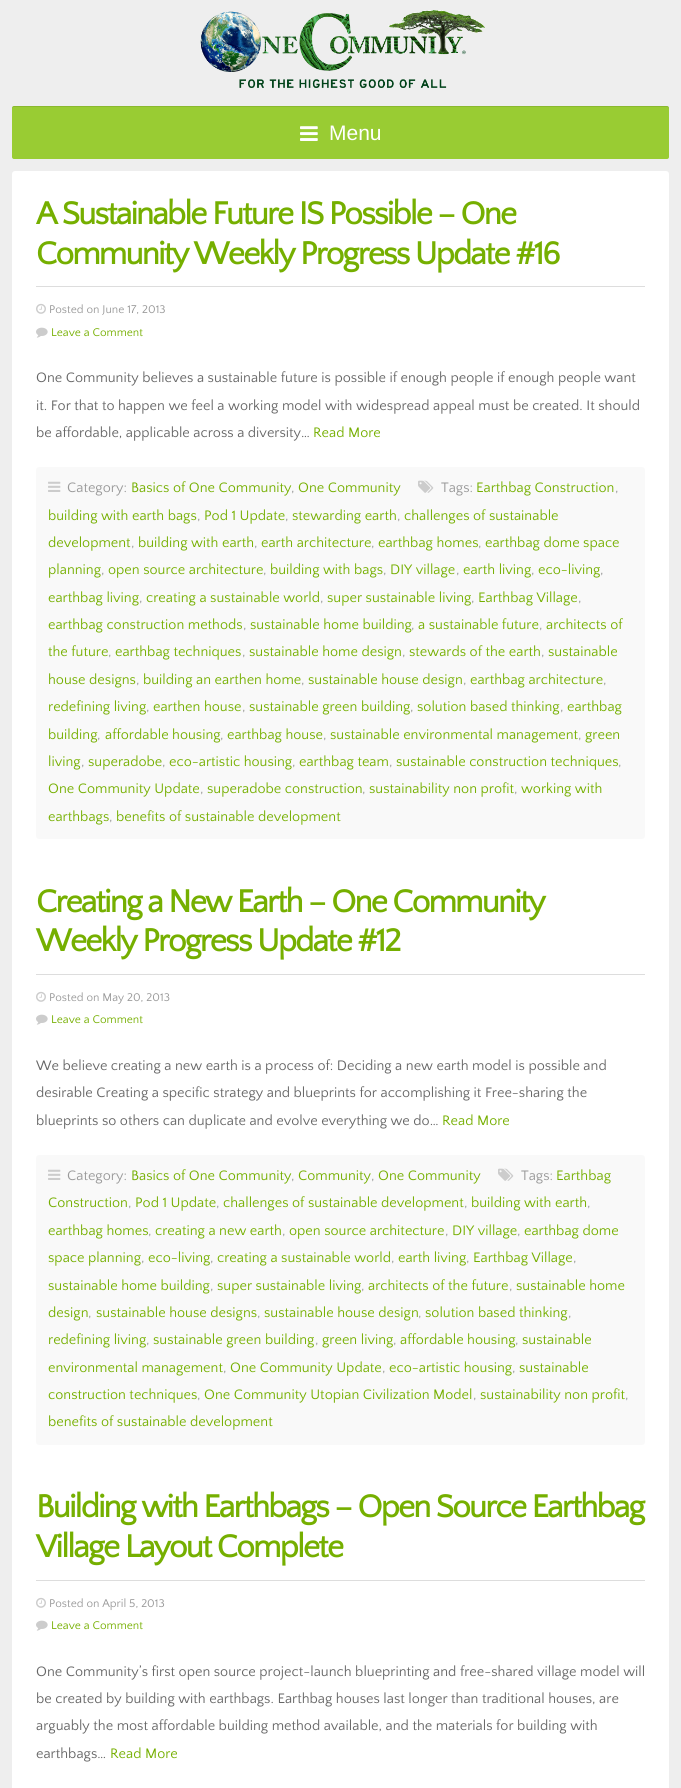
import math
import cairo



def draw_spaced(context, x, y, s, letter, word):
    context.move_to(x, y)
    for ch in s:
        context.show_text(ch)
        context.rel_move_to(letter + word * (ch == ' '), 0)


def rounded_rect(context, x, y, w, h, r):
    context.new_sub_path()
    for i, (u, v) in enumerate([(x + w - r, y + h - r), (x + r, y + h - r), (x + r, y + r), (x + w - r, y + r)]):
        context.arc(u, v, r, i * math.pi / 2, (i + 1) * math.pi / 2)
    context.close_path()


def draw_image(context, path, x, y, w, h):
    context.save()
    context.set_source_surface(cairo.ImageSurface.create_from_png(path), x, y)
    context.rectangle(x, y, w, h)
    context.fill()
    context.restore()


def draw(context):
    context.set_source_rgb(238 / 255, 238 / 255, 238 / 255)
    context.paint()
    draw_image(context, "images/1.png", 200, 10, 285, 78)
    context.set_source_rgb(153 / 255, 204 / 255, 51 / 255)
    rounded_rect(context, 12, 106, 657, 53, 2)
    context.fill()
    context.set_source_rgba(0, 0, 0, 0.1)
    context.new_path()
    context.move_to(14, 107)
    context.line_to(667, 107)
    context.curve_to(668, 107, 669, 108, 669, 109)
    context.curve_to(669, 108, 669, 106, 667, 106)
    context.line_to(14, 106)
    context.curve_to(12, 106, 12, 108, 12, 109)
    context.curve_to(12, 108, 13, 107, 14, 107)
    context.close_path()
    context.fill()
    draw_image(context, "images/2.png", 300, 126, 18, 15)
    context.set_source_rgb(1, 1, 1)
    rounded_rect(context, 12, 171, 657, 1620, 3)
    context.fill()
    context.set_source_rgb(221 / 255, 221 / 255, 221 / 255)
    context.rectangle(36, 286, 609, 1)
    context.fill()
    draw_image(context, "images/3.png", 36, 303, 10, 11)
    draw_image(context, "images/4.png", 36, 327, 12, 11)
    context.set_source_rgb(249 / 255, 249 / 255, 249 / 255)
    rounded_rect(context, 36, 467, 609, 372, 3)
    context.fill()
    draw_image(context, "images/5.png", 48, 481, 13, 11)
    draw_image(context, "images/6.png", 418, 480, 16, 13)
    context.set_source_rgb(221 / 255, 221 / 255, 221 / 255)
    context.rectangle(36, 974, 609, 1)
    context.fill()
    draw_image(context, "images/3.png", 36, 991, 10, 11)
    draw_image(context, "images/4.png", 36, 1014, 12, 11)
    context.set_source_rgb(249 / 255, 249 / 255, 249 / 255)
    rounded_rect(context, 36, 1155, 609, 290, 3)
    context.fill()
    draw_image(context, "images/5.png", 48, 1169, 13, 11)
    draw_image(context, "images/6.png", 498, 1168, 16, 13)
    context.set_source_rgb(221 / 255, 221 / 255, 221 / 255)
    context.rectangle(36, 1580, 609, 1)
    context.fill()
    draw_image(context, "images/3.png", 36, 1597, 10, 11)
    draw_image(context, "images/4.png", 36, 1620, 12, 11)
    context.select_font_face("Liberation Sans")
    context.set_font_size(21)
    context.set_source_rgb(1, 1, 1)
    context.move_to(329, 140)
    context.show_text("Menu")
    context.select_font_face("Quattrocento Sans", cairo.FontSlant.NORMAL, cairo.FontWeight.BOLD)
    context.set_font_size(33.1)
    context.set_source_rgb(117 / 255, 175 / 255, 0)
    draw_spaced(context, 36, 224, "A Sustainable Future IS Possible – One", -1.8, 0)
    draw_spaced(context, 36, 264, "Community Weekly Progress Update #16", -1.8, 0)
    context.select_font_face("Quattrocento Sans")
    context.set_font_size(11.75)
    context.set_source_rgb(153 / 255, 153 / 255, 153 / 255)
    context.move_to(49, 313)
    context.show_text("Posted on June 17, 2013")
    context.set_source_rgb(117 / 255, 175 / 255, 0)
    context.move_to(51, 336)
    context.show_text("Leave a Comment")
    context.set_font_size(14.4)
    context.set_source_rgb(102 / 255, 102 / 255, 102 / 255)
    context.move_to(36, 382)
    context.show_text("One Community believes a sustainable future is possible if enough people if enough people want")
    context.move_to(36, 410)
    context.show_text("it. For that to happen we feel a working model with widespread appeal must be created. It should")
    context.move_to(36, 437)
    context.show_text("be affordable, applicable across a diversity…")
    context.set_source_rgb(117 / 255, 175 / 255, 0)
    context.move_to(313, 437)
    context.show_text("Read More")
    context.set_source_rgb(153 / 255, 153 / 255, 153 / 255)
    context.move_to(67, 492)
    context.show_text("Category:")
    context.set_source_rgb(117 / 255, 175 / 255, 0)
    context.move_to(131, 492)
    context.show_text("Basics of One Community")
    context.set_source_rgb(153 / 255, 153 / 255, 153 / 255)
    context.move_to(291, 492)
    context.show_text(",")
    context.set_source_rgb(117 / 255, 175 / 255, 0)
    context.move_to(298, 492)
    context.show_text("One Community")
    context.set_source_rgb(153 / 255, 153 / 255, 153 / 255)
    context.move_to(441, 492)
    context.show_text("Tags:")
    context.set_source_rgb(117 / 255, 175 / 255, 0)
    context.move_to(476, 492)
    context.show_text("Earthbag Construction")
    context.set_source_rgb(153 / 255, 153 / 255, 153 / 255)
    context.move_to(615, 492)
    context.show_text(",")
    context.set_source_rgb(117 / 255, 175 / 255, 0)
    context.move_to(48, 520)
    context.show_text("building with earth bags")
    context.set_source_rgb(153 / 255, 153 / 255, 153 / 255)
    context.move_to(197, 520)
    context.show_text(",")
    context.set_source_rgb(117 / 255, 175 / 255, 0)
    context.move_to(204, 520)
    context.show_text("Pod 1 Update")
    context.set_source_rgb(153 / 255, 153 / 255, 153 / 255)
    context.move_to(285, 520)
    context.show_text(",")
    context.set_source_rgb(117 / 255, 175 / 255, 0)
    context.move_to(292, 520)
    context.show_text("stewarding earth")
    context.set_source_rgb(153 / 255, 153 / 255, 153 / 255)
    context.move_to(397, 520)
    context.show_text(",")
    context.set_source_rgb(117 / 255, 175 / 255, 0)
    context.move_to(404, 520)
    context.show_text("challenges of sustainable")
    context.move_to(48, 547)
    context.show_text("development")
    context.set_source_rgb(153 / 255, 153 / 255, 153 / 255)
    context.move_to(131, 547)
    context.show_text(",")
    context.set_source_rgb(117 / 255, 175 / 255, 0)
    context.move_to(138, 547)
    context.show_text("building with earth")
    context.set_source_rgb(153 / 255, 153 / 255, 153 / 255)
    context.move_to(254, 547)
    context.show_text(",")
    context.set_source_rgb(117 / 255, 175 / 255, 0)
    context.move_to(261, 547)
    context.show_text("earth architecture")
    context.set_source_rgb(153 / 255, 153 / 255, 153 / 255)
    context.move_to(371, 547)
    context.show_text(",")
    context.set_source_rgb(117 / 255, 175 / 255, 0)
    context.move_to(378, 547)
    context.show_text("earthbag homes")
    context.set_source_rgb(153 / 255, 153 / 255, 153 / 255)
    context.move_to(478, 547)
    context.show_text(",")
    context.set_source_rgb(117 / 255, 175 / 255, 0)
    context.move_to(485, 547)
    context.show_text("earthbag dome space")
    context.move_to(48, 574)
    context.show_text("planning")
    context.set_source_rgb(153 / 255, 153 / 255, 153 / 255)
    context.move_to(101, 574)
    context.show_text(",")
    context.set_source_rgb(117 / 255, 175 / 255, 0)
    context.move_to(108, 574)
    context.show_text("open source architecture")
    context.set_source_rgb(153 / 255, 153 / 255, 153 / 255)
    context.move_to(263, 574)
    context.show_text(",")
    context.set_source_rgb(117 / 255, 175 / 255, 0)
    context.move_to(270, 574)
    context.show_text("building with bags")
    context.set_source_rgb(153 / 255, 153 / 255, 153 / 255)
    context.move_to(383, 574)
    context.show_text(",")
    context.set_source_rgb(117 / 255, 175 / 255, 0)
    context.move_to(390, 574)
    context.show_text("DIY village")
    context.set_source_rgb(153 / 255, 153 / 255, 153 / 255)
    context.move_to(456, 574)
    context.show_text(",")
    context.set_source_rgb(117 / 255, 175 / 255, 0)
    context.move_to(463, 574)
    context.show_text("earth living")
    context.set_source_rgb(153 / 255, 153 / 255, 153 / 255)
    context.move_to(531, 574)
    context.show_text(",")
    context.set_source_rgb(117 / 255, 175 / 255, 0)
    context.move_to(538, 574)
    context.show_text("eco-living")
    context.set_source_rgb(153 / 255, 153 / 255, 153 / 255)
    context.move_to(600, 574)
    context.show_text(",")
    context.set_source_rgb(117 / 255, 175 / 255, 0)
    context.move_to(48, 602)
    context.show_text("earthbag living")
    context.set_source_rgb(153 / 255, 153 / 255, 153 / 255)
    context.move_to(139, 602)
    context.show_text(",")
    context.set_source_rgb(117 / 255, 175 / 255, 0)
    context.move_to(146, 602)
    context.show_text("creating a sustainable world")
    context.set_source_rgb(153 / 255, 153 / 255, 153 / 255)
    context.move_to(320, 602)
    context.show_text(",")
    context.set_source_rgb(117 / 255, 175 / 255, 0)
    context.move_to(327, 602)
    context.show_text("super sustainable living")
    context.set_source_rgb(153 / 255, 153 / 255, 153 / 255)
    context.move_to(471, 602)
    context.show_text(",")
    context.set_source_rgb(117 / 255, 175 / 255, 0)
    context.move_to(478, 602)
    context.show_text("Earthbag Village")
    context.set_source_rgb(153 / 255, 153 / 255, 153 / 255)
    context.move_to(578, 602)
    context.show_text(",")
    context.set_source_rgb(117 / 255, 175 / 255, 0)
    context.move_to(48, 629)
    context.show_text("earthbag construction methods")
    context.set_source_rgb(153 / 255, 153 / 255, 153 / 255)
    context.move_to(243, 629)
    context.show_text(",")
    context.set_source_rgb(117 / 255, 175 / 255, 0)
    context.move_to(250, 629)
    context.show_text("sustainable home building")
    context.set_source_rgb(153 / 255, 153 / 255, 153 / 255)
    context.move_to(411, 629)
    context.show_text(",")
    context.set_source_rgb(117 / 255, 175 / 255, 0)
    context.move_to(418, 629)
    context.show_text("a sustainable future")
    context.set_source_rgb(153 / 255, 153 / 255, 153 / 255)
    context.move_to(539, 629)
    context.show_text(",")
    context.set_source_rgb(117 / 255, 175 / 255, 0)
    context.move_to(546, 629)
    context.show_text("architects of")
    context.move_to(48, 656)
    context.show_text("the future")
    context.set_source_rgb(153 / 255, 153 / 255, 153 / 255)
    context.move_to(108, 656)
    context.show_text(",")
    context.set_source_rgb(117 / 255, 175 / 255, 0)
    context.move_to(115, 656)
    context.show_text("earthbag techniques")
    context.set_source_rgb(153 / 255, 153 / 255, 153 / 255)
    context.move_to(242, 656)
    context.show_text(",")
    context.set_source_rgb(117 / 255, 175 / 255, 0)
    context.move_to(249, 656)
    context.show_text("sustainable home design")
    context.set_source_rgb(153 / 255, 153 / 255, 153 / 255)
    context.move_to(402, 656)
    context.show_text(",")
    context.set_source_rgb(117 / 255, 175 / 255, 0)
    context.move_to(409, 656)
    context.show_text("stewards of the earth")
    context.set_source_rgb(153 / 255, 153 / 255, 153 / 255)
    context.move_to(541, 656)
    context.show_text(",")
    context.set_source_rgb(117 / 255, 175 / 255, 0)
    context.move_to(548, 656)
    context.show_text("sustainable")
    context.move_to(48, 684)
    context.show_text("house designs")
    context.set_source_rgb(153 / 255, 153 / 255, 153 / 255)
    context.move_to(136, 684)
    context.show_text(",")
    context.set_source_rgb(117 / 255, 175 / 255, 0)
    context.move_to(143, 684)
    context.show_text("building an earthen home")
    context.set_source_rgb(153 / 255, 153 / 255, 153 / 255)
    context.move_to(301, 684)
    context.show_text(",")
    context.set_source_rgb(117 / 255, 175 / 255, 0)
    context.move_to(308, 684)
    context.show_text("sustainable house design")
    context.set_source_rgb(153 / 255, 153 / 255, 153 / 255)
    context.move_to(463, 684)
    context.show_text(",")
    context.set_source_rgb(117 / 255, 175 / 255, 0)
    context.move_to(470, 684)
    context.show_text("earthbag architecture")
    context.set_source_rgb(153 / 255, 153 / 255, 153 / 255)
    context.move_to(603, 684)
    context.show_text(",")
    context.set_source_rgb(117 / 255, 175 / 255, 0)
    context.move_to(48, 711)
    context.show_text("redefining living")
    context.set_source_rgb(153 / 255, 153 / 255, 153 / 255)
    context.move_to(146, 711)
    context.show_text(",")
    context.set_source_rgb(117 / 255, 175 / 255, 0)
    context.move_to(153, 711)
    context.show_text("earthen house")
    context.set_source_rgb(153 / 255, 153 / 255, 153 / 255)
    context.move_to(242, 711)
    context.show_text(",")
    context.set_source_rgb(117 / 255, 175 / 255, 0)
    context.move_to(249, 711)
    context.show_text("sustainable green building")
    context.set_source_rgb(153 / 255, 153 / 255, 153 / 255)
    context.move_to(410, 711)
    context.show_text(",")
    context.set_source_rgb(117 / 255, 175 / 255, 0)
    context.move_to(417, 711)
    context.show_text("solution based thinking")
    context.set_source_rgb(153 / 255, 153 / 255, 153 / 255)
    context.move_to(560, 711)
    context.show_text(",")
    context.set_source_rgb(117 / 255, 175 / 255, 0)
    context.move_to(567, 711)
    context.show_text("earthbag")
    context.move_to(48, 739)
    context.show_text("building")
    context.set_source_rgb(153 / 255, 153 / 255, 153 / 255)
    context.move_to(97, 739)
    context.show_text(",")
    context.set_source_rgb(117 / 255, 175 / 255, 0)
    context.move_to(105, 739)
    context.show_text("affordable housing")
    context.set_source_rgb(153 / 255, 153 / 255, 153 / 255)
    context.move_to(220, 739)
    context.show_text(",")
    context.set_source_rgb(117 / 255, 175 / 255, 0)
    context.move_to(227, 739)
    context.show_text("earthbag house")
    context.set_source_rgb(153 / 255, 153 / 255, 153 / 255)
    context.move_to(323, 739)
    context.show_text(",")
    context.set_source_rgb(117 / 255, 175 / 255, 0)
    context.move_to(330, 739)
    context.show_text("sustainable environmental management")
    context.set_source_rgb(153 / 255, 153 / 255, 153 / 255)
    context.move_to(578, 739)
    context.show_text(",")
    context.set_source_rgb(117 / 255, 175 / 255, 0)
    context.move_to(585, 739)
    context.show_text("green")
    context.move_to(48, 766)
    context.show_text("living")
    context.set_source_rgb(153 / 255, 153 / 255, 153 / 255)
    context.move_to(81, 766)
    context.show_text(",")
    context.set_source_rgb(117 / 255, 175 / 255, 0)
    context.move_to(88, 766)
    context.show_text("superadobe")
    context.set_source_rgb(153 / 255, 153 / 255, 153 / 255)
    context.move_to(162, 766)
    context.show_text(",")
    context.set_source_rgb(117 / 255, 175 / 255, 0)
    context.move_to(169, 766)
    context.show_text("eco-artistic housing")
    context.set_source_rgb(153 / 255, 153 / 255, 153 / 255)
    context.move_to(292, 766)
    context.show_text(",")
    context.set_source_rgb(117 / 255, 175 / 255, 0)
    context.move_to(299, 766)
    context.show_text("earthbag team")
    context.set_source_rgb(153 / 255, 153 / 255, 153 / 255)
    context.move_to(389, 766)
    context.show_text(",")
    context.set_source_rgb(117 / 255, 175 / 255, 0)
    context.move_to(396, 766)
    context.show_text("sustainable construction techniques")
    context.set_source_rgb(153 / 255, 153 / 255, 153 / 255)
    context.move_to(618, 766)
    context.show_text(",")
    context.set_source_rgb(117 / 255, 175 / 255, 0)
    context.move_to(48, 793)
    context.show_text("One Community Update")
    context.set_source_rgb(153 / 255, 153 / 255, 153 / 255)
    context.move_to(200, 793)
    context.show_text(",")
    context.set_source_rgb(117 / 255, 175 / 255, 0)
    context.move_to(207, 793)
    context.show_text("superadobe construction")
    context.set_source_rgb(153 / 255, 153 / 255, 153 / 255)
    context.move_to(362, 793)
    context.show_text(",")
    context.set_source_rgb(117 / 255, 175 / 255, 0)
    context.move_to(369, 793)
    context.show_text("sustainability non profit")
    context.set_source_rgb(153 / 255, 153 / 255, 153 / 255)
    context.move_to(514, 793)
    context.show_text(",")
    context.set_source_rgb(117 / 255, 175 / 255, 0)
    context.move_to(521, 793)
    context.show_text("working with")
    context.move_to(48, 821)
    context.show_text("earthbags")
    context.set_source_rgb(153 / 255, 153 / 255, 153 / 255)
    context.move_to(109, 821)
    context.show_text(",")
    context.set_source_rgb(117 / 255, 175 / 255, 0)
    context.move_to(116, 821)
    context.show_text("benefits of sustainable development")
    context.select_font_face("Quattrocento Sans", cairo.FontSlant.NORMAL, cairo.FontWeight.BOLD)
    context.set_font_size(33.1)
    draw_spaced(context, 36, 912, "Creating a New Earth – One Community", -1.8, 0)
    draw_spaced(context, 36, 951, "Weekly Progress Update #12", -1.8, 0)
    context.select_font_face("Quattrocento Sans")
    context.set_font_size(11.75)
    context.set_source_rgb(153 / 255, 153 / 255, 153 / 255)
    context.move_to(49, 1001)
    context.show_text("Posted on May 20, 2013")
    context.set_source_rgb(117 / 255, 175 / 255, 0)
    context.move_to(51, 1023)
    context.show_text("Leave a Comment")
    context.set_font_size(14.4)
    context.set_source_rgb(102 / 255, 102 / 255, 102 / 255)
    context.move_to(36, 1070)
    context.show_text("We believe creating a new earth is a process of: Deciding a new earth model is possible and")
    context.move_to(36, 1097)
    context.show_text("desirable Creating a specific strategy and blueprints for accomplishing it Free-sharing the")
    context.move_to(36, 1125)
    context.show_text("blueprints so others can duplicate and evolve everything we do…")
    context.set_source_rgb(117 / 255, 175 / 255, 0)
    context.move_to(442, 1125)
    context.show_text("Read More")
    context.set_source_rgb(153 / 255, 153 / 255, 153 / 255)
    context.move_to(67, 1180)
    context.show_text("Category:")
    context.set_source_rgb(117 / 255, 175 / 255, 0)
    context.move_to(131, 1180)
    context.show_text("Basics of One Community")
    context.set_source_rgb(153 / 255, 153 / 255, 153 / 255)
    context.move_to(291, 1180)
    context.show_text(",")
    context.set_source_rgb(117 / 255, 175 / 255, 0)
    context.move_to(298, 1180)
    context.show_text("Community")
    context.set_source_rgb(153 / 255, 153 / 255, 153 / 255)
    context.move_to(371, 1180)
    context.show_text(",")
    context.set_source_rgb(117 / 255, 175 / 255, 0)
    context.move_to(378, 1180)
    context.show_text("One Community")
    context.set_source_rgb(153 / 255, 153 / 255, 153 / 255)
    context.move_to(521, 1180)
    context.show_text("Tags:")
    context.set_source_rgb(117 / 255, 175 / 255, 0)
    context.move_to(556, 1180)
    context.show_text("Earthbag")
    context.move_to(48, 1207)
    context.show_text("Construction")
    context.set_source_rgb(153 / 255, 153 / 255, 153 / 255)
    context.move_to(128, 1207)
    context.show_text(",")
    context.set_source_rgb(117 / 255, 175 / 255, 0)
    context.move_to(135, 1207)
    context.show_text("Pod 1 Update")
    context.set_source_rgb(153 / 255, 153 / 255, 153 / 255)
    context.move_to(216, 1207)
    context.show_text(",")
    context.set_source_rgb(117 / 255, 175 / 255, 0)
    context.move_to(223, 1207)
    context.show_text("challenges of sustainable development")
    context.set_source_rgb(153 / 255, 153 / 255, 153 / 255)
    context.move_to(464, 1207)
    context.show_text(",")
    context.set_source_rgb(117 / 255, 175 / 255, 0)
    context.move_to(471, 1207)
    context.show_text("building with earth")
    context.set_source_rgb(153 / 255, 153 / 255, 153 / 255)
    context.move_to(587, 1207)
    context.show_text(",")
    context.set_source_rgb(117 / 255, 175 / 255, 0)
    context.move_to(48, 1235)
    context.show_text("earthbag homes")
    context.set_source_rgb(153 / 255, 153 / 255, 153 / 255)
    context.move_to(148, 1235)
    context.show_text(",")
    context.set_source_rgb(117 / 255, 175 / 255, 0)
    context.move_to(155, 1235)
    context.show_text("creating a new earth")
    context.set_source_rgb(153 / 255, 153 / 255, 153 / 255)
    context.move_to(282, 1235)
    context.show_text(",")
    context.set_source_rgb(117 / 255, 175 / 255, 0)
    context.move_to(289, 1235)
    context.show_text("open source architecture")
    context.set_source_rgb(153 / 255, 153 / 255, 153 / 255)
    context.move_to(445, 1235)
    context.show_text(",")
    context.set_source_rgb(117 / 255, 175 / 255, 0)
    context.move_to(452, 1235)
    context.show_text("DIY village")
    context.set_source_rgb(153 / 255, 153 / 255, 153 / 255)
    context.move_to(517, 1235)
    context.show_text(",")
    context.set_source_rgb(117 / 255, 175 / 255, 0)
    context.move_to(524, 1235)
    context.show_text("earthbag dome")
    context.move_to(48, 1262)
    context.show_text("space planning")
    context.set_source_rgb(153 / 255, 153 / 255, 153 / 255)
    context.move_to(141, 1262)
    context.show_text(",")
    context.set_source_rgb(117 / 255, 175 / 255, 0)
    context.move_to(148, 1262)
    context.show_text("eco-living")
    context.set_source_rgb(153 / 255, 153 / 255, 153 / 255)
    context.move_to(210, 1262)
    context.show_text(",")
    context.set_source_rgb(117 / 255, 175 / 255, 0)
    context.move_to(217, 1262)
    context.show_text("creating a sustainable world")
    context.set_source_rgb(153 / 255, 153 / 255, 153 / 255)
    context.move_to(391, 1262)
    context.show_text(",")
    context.set_source_rgb(117 / 255, 175 / 255, 0)
    context.move_to(398, 1262)
    context.show_text("earth living")
    context.set_source_rgb(153 / 255, 153 / 255, 153 / 255)
    context.move_to(466, 1262)
    context.show_text(",")
    context.set_source_rgb(117 / 255, 175 / 255, 0)
    context.move_to(473, 1262)
    context.show_text("Earthbag Village")
    context.set_source_rgb(153 / 255, 153 / 255, 153 / 255)
    context.move_to(573, 1262)
    context.show_text(",")
    context.set_source_rgb(117 / 255, 175 / 255, 0)
    context.move_to(48, 1290)
    context.show_text("sustainable home building")
    context.set_source_rgb(153 / 255, 153 / 255, 153 / 255)
    context.move_to(210, 1290)
    context.show_text(",")
    context.set_source_rgb(117 / 255, 175 / 255, 0)
    context.move_to(217, 1290)
    context.show_text("super sustainable living")
    context.set_source_rgb(153 / 255, 153 / 255, 153 / 255)
    context.move_to(361, 1290)
    context.show_text(",")
    context.set_source_rgb(117 / 255, 175 / 255, 0)
    context.move_to(368, 1290)
    context.show_text("architects of the future")
    context.set_source_rgb(153 / 255, 153 / 255, 153 / 255)
    context.move_to(509, 1290)
    context.show_text(",")
    context.set_source_rgb(117 / 255, 175 / 255, 0)
    context.move_to(516, 1290)
    context.show_text("sustainable home")
    context.move_to(48, 1317)
    context.show_text("design")
    context.set_source_rgb(153 / 255, 153 / 255, 153 / 255)
    context.move_to(88, 1317)
    context.show_text(",")
    context.set_source_rgb(117 / 255, 175 / 255, 0)
    context.move_to(96, 1317)
    context.show_text("sustainable house designs")
    context.set_source_rgb(153 / 255, 153 / 255, 153 / 255)
    context.move_to(257, 1317)
    context.show_text(",")
    context.set_source_rgb(117 / 255, 175 / 255, 0)
    context.move_to(264, 1317)
    context.show_text("sustainable house design")
    context.set_source_rgb(153 / 255, 153 / 255, 153 / 255)
    context.move_to(418, 1317)
    context.show_text(",")
    context.set_source_rgb(117 / 255, 175 / 255, 0)
    context.move_to(425, 1317)
    context.show_text("solution based thinking")
    context.set_source_rgb(153 / 255, 153 / 255, 153 / 255)
    context.move_to(568, 1317)
    context.show_text(",")
    context.set_source_rgb(117 / 255, 175 / 255, 0)
    context.move_to(48, 1344)
    context.show_text("redefining living")
    context.set_source_rgb(153 / 255, 153 / 255, 153 / 255)
    context.move_to(146, 1344)
    context.show_text(",")
    context.set_source_rgb(117 / 255, 175 / 255, 0)
    context.move_to(153, 1344)
    context.show_text("sustainable green building")
    context.set_source_rgb(153 / 255, 153 / 255, 153 / 255)
    context.move_to(315, 1344)
    context.show_text(",")
    context.set_source_rgb(117 / 255, 175 / 255, 0)
    context.move_to(322, 1344)
    context.show_text("green living")
    context.set_source_rgb(153 / 255, 153 / 255, 153 / 255)
    context.move_to(393, 1344)
    context.show_text(",")
    context.set_source_rgb(117 / 255, 175 / 255, 0)
    context.move_to(400, 1344)
    context.show_text("affordable housing")
    context.set_source_rgb(153 / 255, 153 / 255, 153 / 255)
    context.move_to(515, 1344)
    context.show_text(",")
    context.set_source_rgb(117 / 255, 175 / 255, 0)
    context.move_to(522, 1344)
    context.show_text("sustainable")
    context.move_to(48, 1372)
    context.show_text("environmental management")
    context.set_source_rgb(153 / 255, 153 / 255, 153 / 255)
    context.move_to(223, 1372)
    context.show_text(",")
    context.set_source_rgb(117 / 255, 175 / 255, 0)
    context.move_to(230, 1372)
    context.show_text("One Community Update")
    context.set_source_rgb(153 / 255, 153 / 255, 153 / 255)
    context.move_to(382, 1372)
    context.show_text(",")
    context.set_source_rgb(117 / 255, 175 / 255, 0)
    context.move_to(389, 1372)
    context.show_text("eco-artistic housing")
    context.set_source_rgb(153 / 255, 153 / 255, 153 / 255)
    context.move_to(512, 1372)
    context.show_text(",")
    context.set_source_rgb(117 / 255, 175 / 255, 0)
    context.move_to(519, 1372)
    context.show_text("sustainable")
    context.move_to(48, 1399)
    context.show_text("construction techniques")
    context.set_source_rgb(153 / 255, 153 / 255, 153 / 255)
    context.move_to(197, 1399)
    context.show_text(",")
    context.set_source_rgb(117 / 255, 175 / 255, 0)
    context.move_to(204, 1399)
    context.show_text("One Community Utopian Civilization Model")
    context.set_source_rgb(153 / 255, 153 / 255, 153 / 255)
    context.move_to(473, 1399)
    context.show_text(",")
    context.set_source_rgb(117 / 255, 175 / 255, 0)
    context.move_to(480, 1399)
    context.show_text("sustainability non profit")
    context.set_source_rgb(153 / 255, 153 / 255, 153 / 255)
    context.move_to(625, 1399)
    context.show_text(",")
    context.set_source_rgb(117 / 255, 175 / 255, 0)
    context.move_to(48, 1426)
    context.show_text("benefits of sustainable development")
    context.select_font_face("Quattrocento Sans", cairo.FontSlant.NORMAL, cairo.FontWeight.BOLD)
    context.set_font_size(33.1)
    draw_spaced(context, 36, 1517, "Building with Earthbags – Open Source Earthbag", -1.8, 0)
    draw_spaced(context, 36, 1557, "Village Layout Complete", -1.8, 0)
    context.select_font_face("Quattrocento Sans")
    context.set_font_size(11.75)
    context.set_source_rgb(153 / 255, 153 / 255, 153 / 255)
    context.move_to(49, 1607)
    context.show_text("Posted on April 5, 2013")
    context.set_source_rgb(117 / 255, 175 / 255, 0)
    context.move_to(51, 1629)
    context.show_text("Leave a Comment")
    context.set_font_size(14.4)
    context.set_source_rgb(102 / 255, 102 / 255, 102 / 255)
    context.move_to(36, 1676)
    context.show_text("One Community’s first open source project-launch blueprinting and free-shared village model will")
    context.move_to(36, 1703)
    context.show_text("be created by building with earthbags. Earthbag houses last longer than traditional houses, are")
    context.move_to(36, 1730)
    context.show_text("arguably the most affordable building method available, and the materials for building with")
    context.move_to(36, 1758)
    context.show_text("earthbags…")
    context.set_source_rgb(117 / 255, 175 / 255, 0)
    context.move_to(110, 1758)
    context.show_text("Read More")


surface = cairo.ImageSurface(cairo.Format.RGB24, 681, 1788)
context = cairo.Context(surface)
options = cairo.FontOptions()
options.set_hint_metrics(cairo.HintMetrics.OFF)
options.set_hint_style(cairo.HintStyle.NONE)
context.set_font_options(options)
context.set_miter_limit(4)
draw(context)
surface.write_to_png("out.png")
